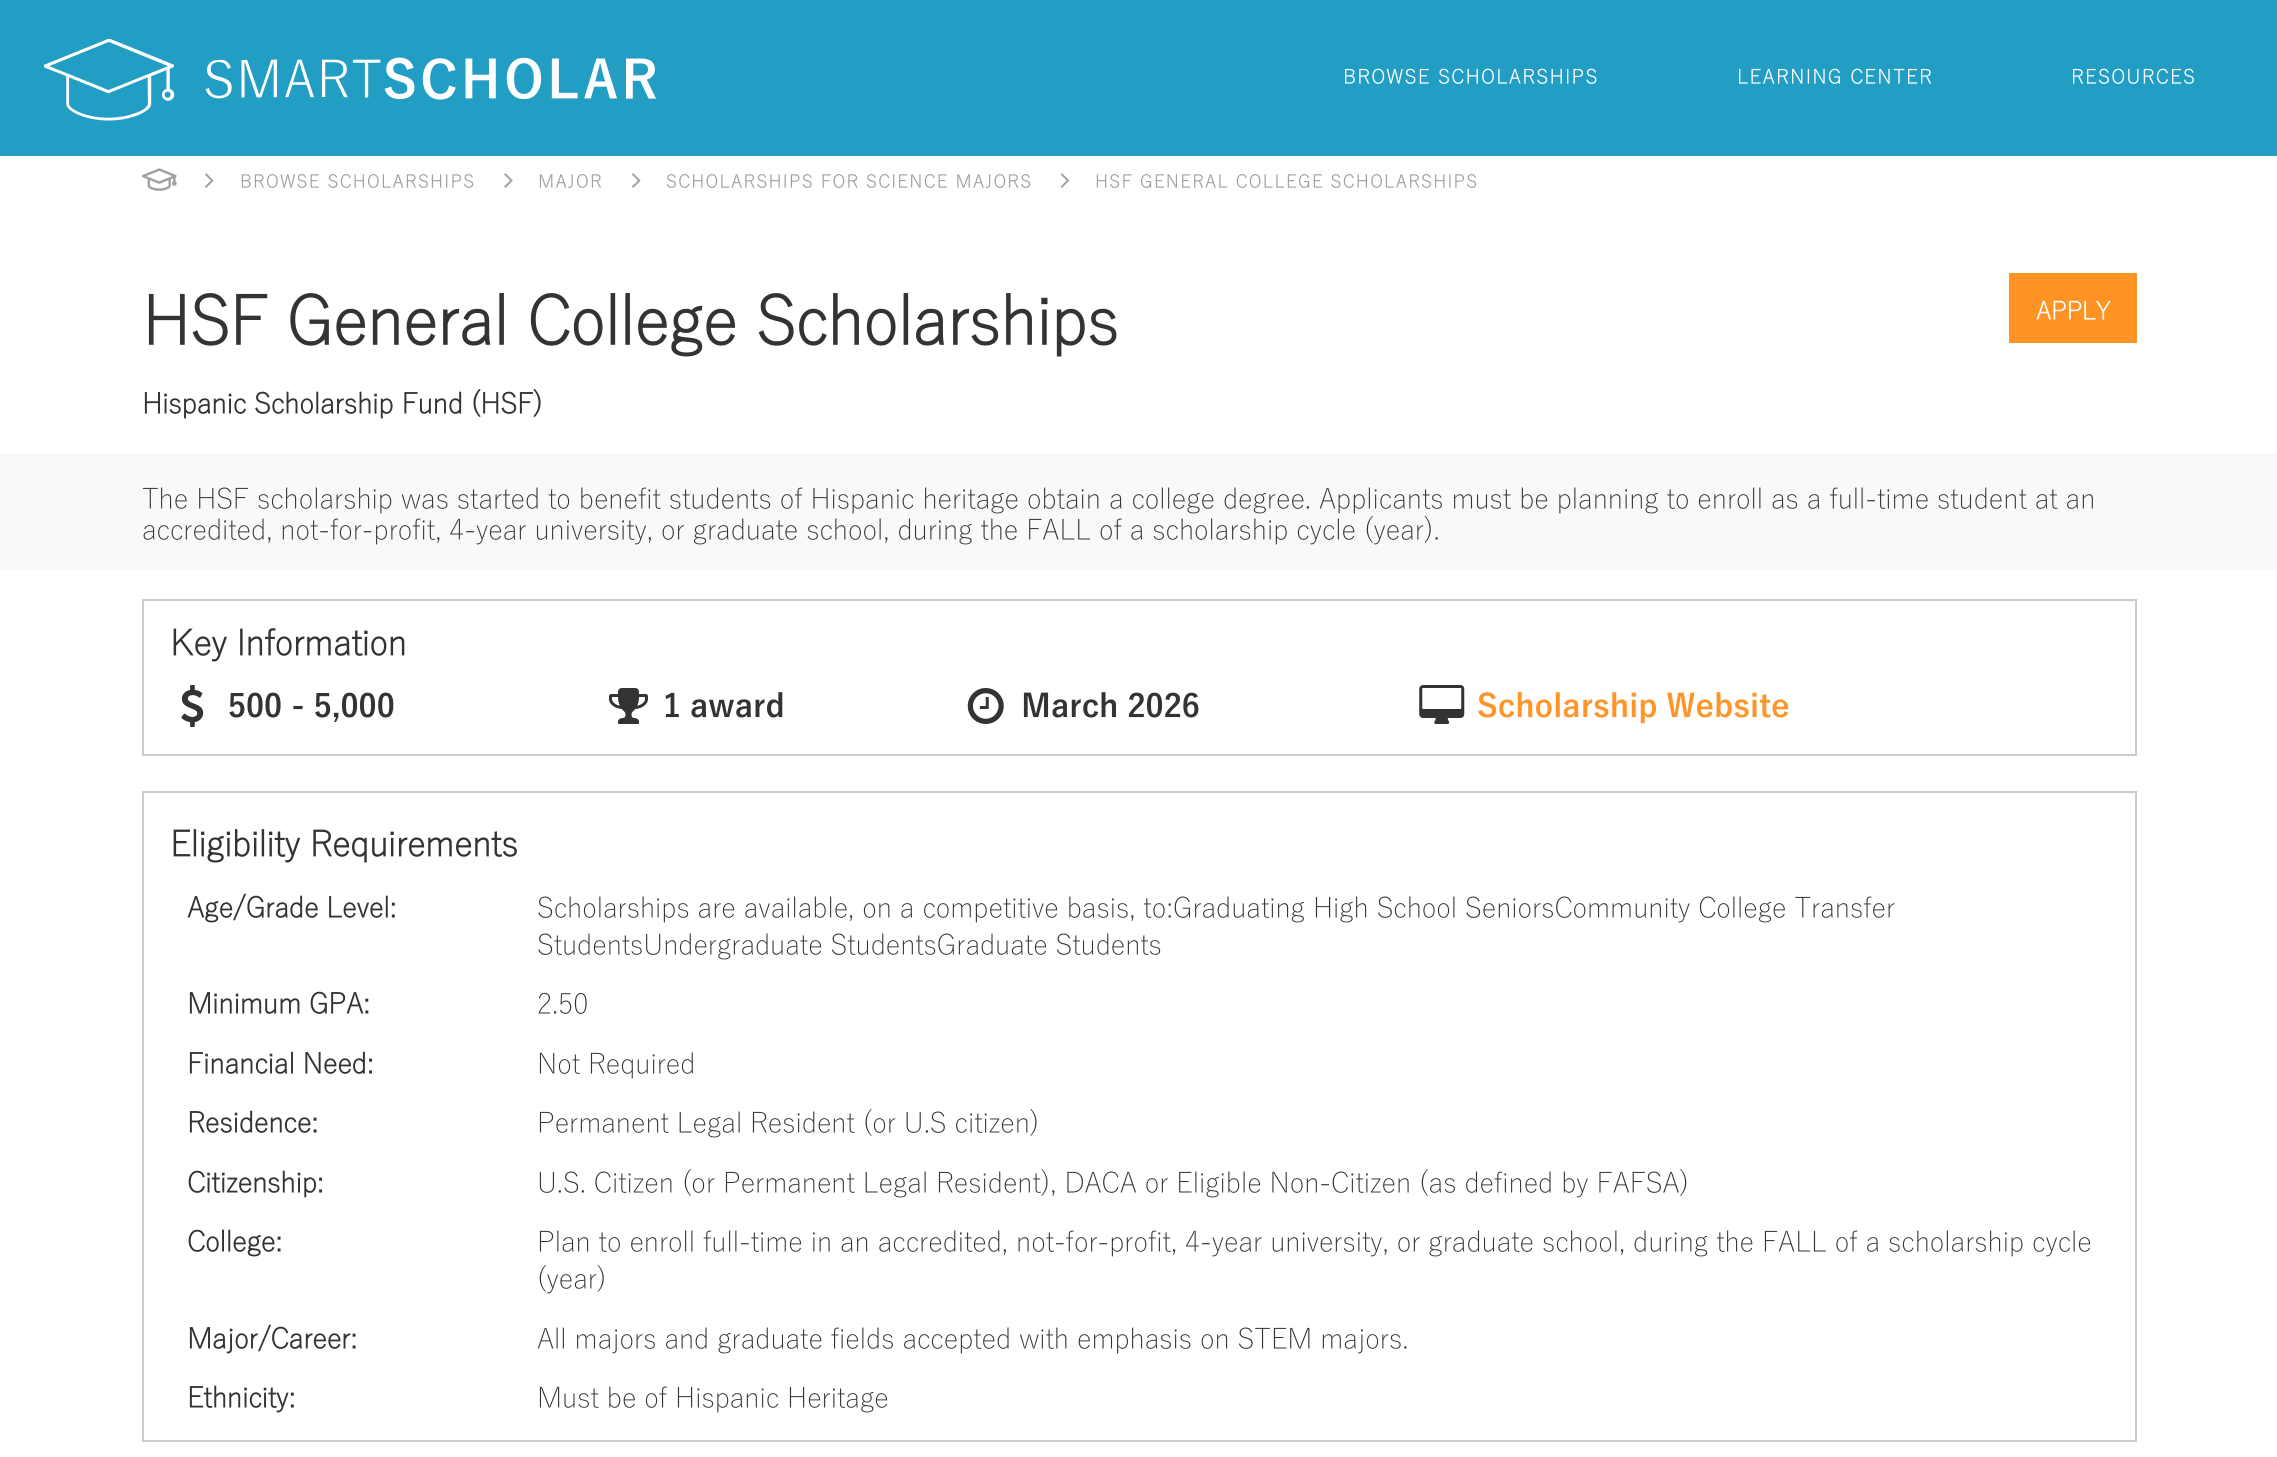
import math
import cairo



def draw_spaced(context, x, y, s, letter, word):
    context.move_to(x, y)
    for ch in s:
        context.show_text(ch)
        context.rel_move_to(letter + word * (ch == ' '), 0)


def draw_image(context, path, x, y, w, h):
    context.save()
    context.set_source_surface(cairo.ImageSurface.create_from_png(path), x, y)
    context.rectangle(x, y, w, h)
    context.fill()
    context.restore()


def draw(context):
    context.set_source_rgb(1, 1, 1)
    context.paint()
    context.set_source_rgb(34 / 255, 157 / 255, 196 / 255)
    context.rectangle(0, 0, 2277, 156)
    context.fill()
    draw_image(context, "images/1.png", 44, 39, 612, 82)
    draw_image(context, "images/2.png", 142, 168, 35, 23)
    draw_image(context, "images/3.png", 205, 173, 9, 15)
    draw_image(context, "images/4.png", 504, 173, 9, 15)
    draw_image(context, "images/3.png", 632, 173, 9, 15)
    draw_image(context, "images/5.png", 1060, 173, 10, 15)
    context.set_source_rgb(1, 148 / 255, 36 / 255)
    context.rectangle(2009, 273, 128, 70)
    context.fill()
    context.set_source_rgb(249 / 255, 249 / 255, 249 / 255)
    context.rectangle(0, 453, 2277, 116)
    context.fill()
    context.rectangle(143, 600, 1993, 155)
    context.set_source_rgb(204 / 255, 204 / 255, 204 / 255)
    context.stroke()
    draw_image(context, "images/6.png", 181, 685, 23, 42)
    draw_image(context, "images/7.png", 609, 688, 39, 36)
    draw_image(context, "images/8.png", 967, 688, 37, 36)
    draw_image(context, "images/9.png", 1419, 685, 46, 39)
    context.rectangle(143, 792, 1993, 649)
    context.stroke()
    context.select_font_face("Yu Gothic", cairo.FontSlant.NORMAL, cairo.FontWeight.BOLD)
    context.set_font_size(19.25)
    context.set_source_rgb(1, 1, 1)
    draw_spaced(context, 1343, 84, "BROWSE SCHOLARSHIPS", 1.75, 0)
    draw_spaced(context, 1737, 84, "LEARNING CENTER", 1.75, 0)
    draw_spaced(context, 2071, 84, "RESOURCES", 1.75, 0)
    context.set_font_size(17.5)
    context.set_source_rgb(162 / 255, 161 / 255, 161 / 255)
    draw_spaced(context, 240, 188, "BROWSE SCHOLARSHIPS", 1.75, 0)
    draw_spaced(context, 538, 188, "MAJOR", 1.75, 0)
    draw_spaced(context, 666, 188, "SCHOLARSHIPS FOR SCIENCE MAJORS", 1.75, 0)
    draw_spaced(context, 1095, 188, "HSF GENERAL COLLEGE SCHOLARSHIPS", 1.75, 0)
    context.set_font_size(66.5)
    context.set_source_rgb(52 / 255, 51 / 255, 51 / 255)
    context.move_to(142, 346)
    context.show_text("HSF General College Scholarships")
    context.set_font_size(24.5)
    context.set_source_rgb(1, 1, 1)
    context.move_to(2036, 320)
    context.show_text("APPLY")
    context.set_font_size(28)
    context.set_source_rgb(52 / 255, 51 / 255, 51 / 255)
    context.move_to(142, 414)
    context.show_text("Hispanic Scholarship Fund (HSF)")
    context.select_font_face("Yu Gothic Light")
    context.move_to(142, 509)
    context.show_text("The HSF scholarship was started to benefit students of Hispanic heritage obtain a college degree. Applicants must be planning to enroll as a full-time student at an")
    context.move_to(142, 540)
    context.show_text("accredited, not-for-profit, 4-year university, or graduate school, during the FALL of a scholarship cycle (year).")
    context.select_font_face("Yu Gothic", cairo.FontSlant.NORMAL, cairo.FontWeight.BOLD)
    context.set_font_size(35)
    context.move_to(170, 656)
    context.show_text("Key Information")
    context.select_font_face("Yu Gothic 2", cairo.FontSlant.NORMAL, cairo.FontWeight.BOLD)
    context.set_font_size(31.5)
    context.move_to(228, 717)
    context.show_text("500 - 5,000")
    context.move_to(663, 717)
    context.show_text("1 award")
    context.move_to(1021, 717)
    context.show_text("March 2026")
    context.set_source_rgb(1, 148 / 255, 41 / 255)
    context.move_to(1477, 717)
    context.show_text("Scholarship Website")
    context.select_font_face("Yu Gothic", cairo.FontSlant.NORMAL, cairo.FontWeight.BOLD)
    context.set_font_size(35)
    context.set_source_rgb(52 / 255, 51 / 255, 51 / 255)
    context.move_to(170, 857)
    context.show_text("Eligibility Requirements")
    context.set_font_size(28)
    context.move_to(187, 918)
    context.show_text("Age/Grade Level:")
    context.select_font_face("Yu Gothic Light")
    context.move_to(537, 918)
    context.show_text("Scholarships are available, on a competitive basis, to:Graduating High School SeniorsCommunity College Transfer")
    context.move_to(537, 955)
    context.show_text("StudentsUndergraduate StudentsGraduate Students")
    context.select_font_face("Yu Gothic", cairo.FontSlant.NORMAL, cairo.FontWeight.BOLD)
    context.move_to(187, 1014)
    context.show_text("Minimum GPA:")
    context.select_font_face("Yu Gothic Light")
    context.move_to(537, 1014)
    context.show_text("2.50")
    context.select_font_face("Yu Gothic", cairo.FontSlant.NORMAL, cairo.FontWeight.BOLD)
    context.move_to(187, 1074)
    context.show_text("Financial Need:")
    context.select_font_face("Yu Gothic Light")
    context.move_to(537, 1074)
    context.show_text("Not Required")
    context.select_font_face("Yu Gothic", cairo.FontSlant.NORMAL, cairo.FontWeight.BOLD)
    context.move_to(187, 1133)
    context.show_text("Residence:")
    context.select_font_face("Yu Gothic Light")
    context.move_to(537, 1133)
    context.show_text("Permanent Legal Resident (or U.S citizen)")
    context.select_font_face("Yu Gothic", cairo.FontSlant.NORMAL, cairo.FontWeight.BOLD)
    context.move_to(187, 1193)
    context.show_text("Citizenship:")
    context.select_font_face("Yu Gothic Light")
    context.move_to(537, 1193)
    context.show_text("U.S. Citizen (or Permanent Legal Resident), DACA or Eligible Non-Citizen (as defined by FAFSA)")
    context.select_font_face("Yu Gothic", cairo.FontSlant.NORMAL, cairo.FontWeight.BOLD)
    context.move_to(187, 1252)
    context.show_text("College:")
    context.select_font_face("Yu Gothic Light")
    context.move_to(537, 1252)
    context.show_text("Plan to enroll full-time in an accredited, not-for-profit, 4-year university, or graduate school, during the FALL of a scholarship cycle")
    context.move_to(537, 1289)
    context.show_text("(year)")
    context.select_font_face("Yu Gothic", cairo.FontSlant.NORMAL, cairo.FontWeight.BOLD)
    context.move_to(187, 1349)
    context.show_text("Major/Career:")
    context.select_font_face("Yu Gothic Light")
    context.move_to(537, 1349)
    context.show_text("All majors and graduate fields accepted with emphasis on STEM majors.")
    context.select_font_face("Yu Gothic", cairo.FontSlant.NORMAL, cairo.FontWeight.BOLD)
    context.move_to(187, 1408)
    context.show_text("Ethnicity:")
    context.select_font_face("Yu Gothic Light")
    context.move_to(537, 1408)
    context.show_text("Must be of Hispanic Heritage")


surface = cairo.ImageSurface(cairo.Format.RGB24, 2277, 1457)
context = cairo.Context(surface)
options = cairo.FontOptions()
options.set_hint_metrics(cairo.HintMetrics.OFF)
options.set_hint_style(cairo.HintStyle.NONE)
context.set_font_options(options)
context.set_miter_limit(4)
draw(context)
surface.write_to_png("out.png")
